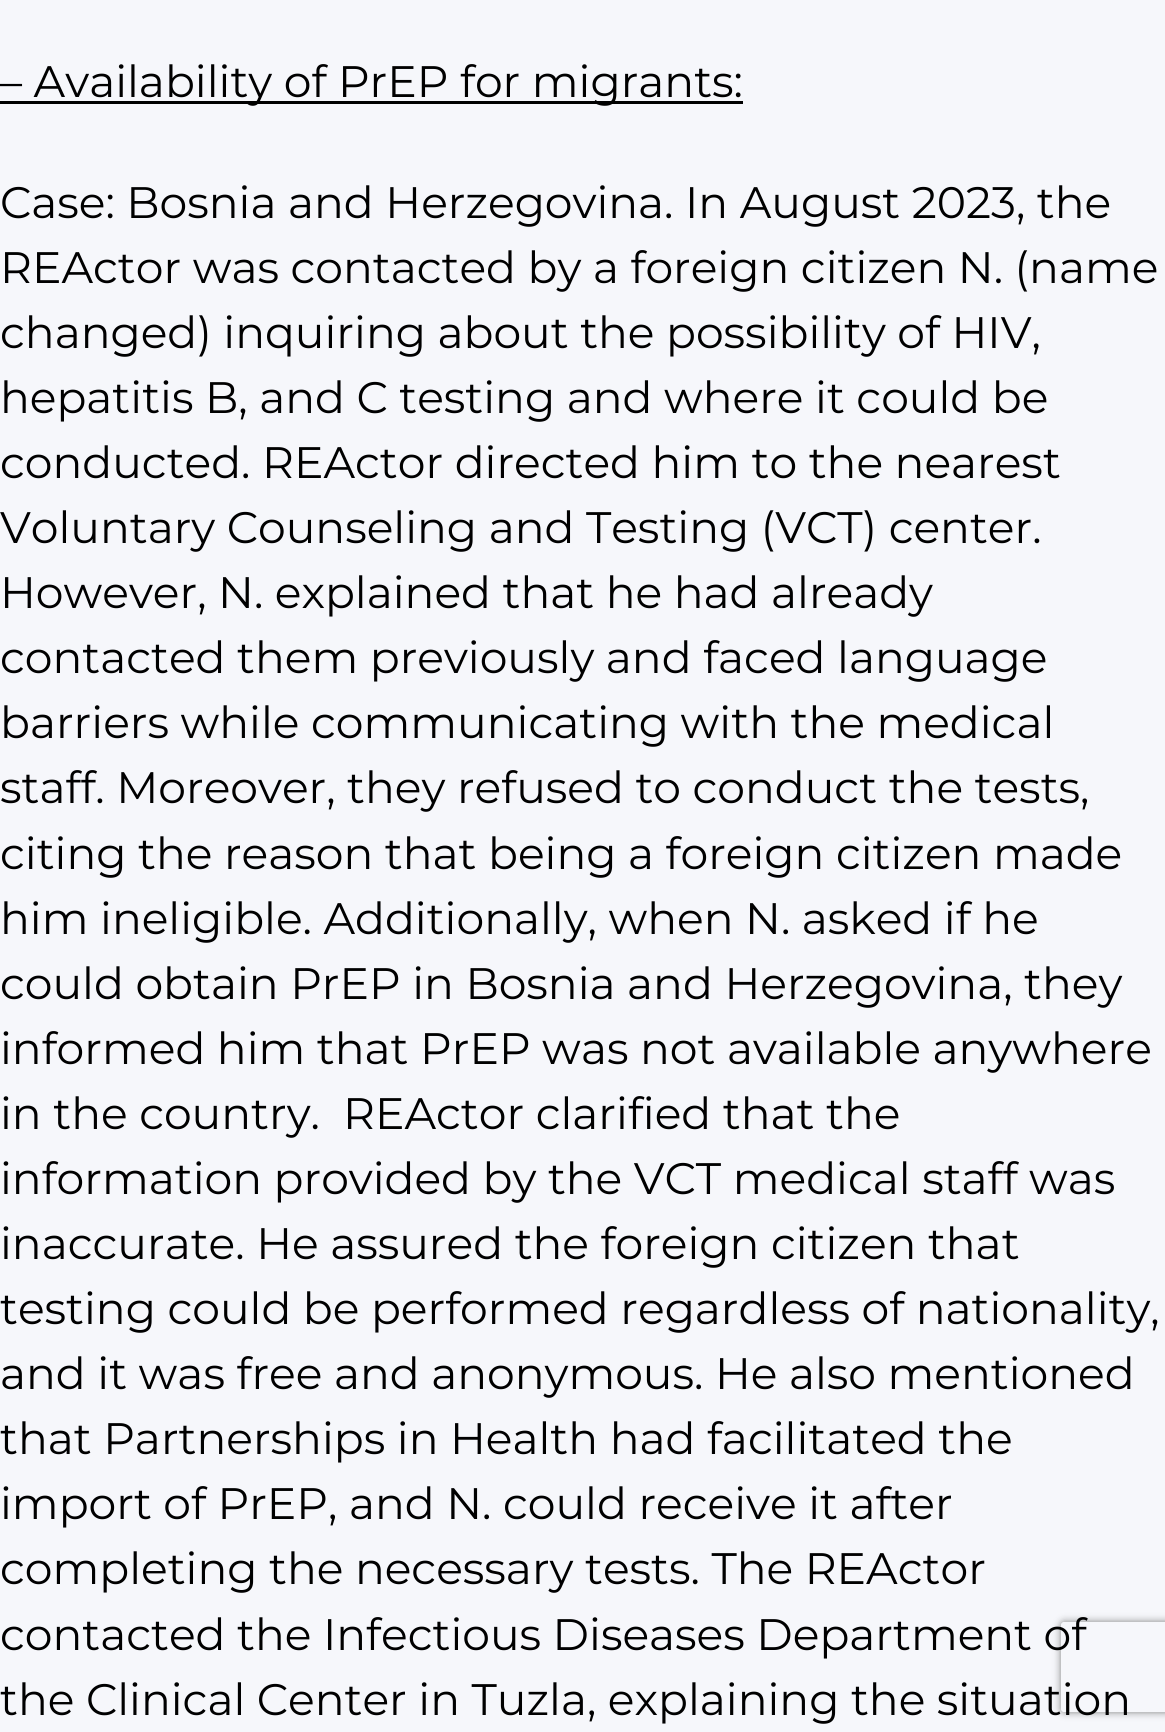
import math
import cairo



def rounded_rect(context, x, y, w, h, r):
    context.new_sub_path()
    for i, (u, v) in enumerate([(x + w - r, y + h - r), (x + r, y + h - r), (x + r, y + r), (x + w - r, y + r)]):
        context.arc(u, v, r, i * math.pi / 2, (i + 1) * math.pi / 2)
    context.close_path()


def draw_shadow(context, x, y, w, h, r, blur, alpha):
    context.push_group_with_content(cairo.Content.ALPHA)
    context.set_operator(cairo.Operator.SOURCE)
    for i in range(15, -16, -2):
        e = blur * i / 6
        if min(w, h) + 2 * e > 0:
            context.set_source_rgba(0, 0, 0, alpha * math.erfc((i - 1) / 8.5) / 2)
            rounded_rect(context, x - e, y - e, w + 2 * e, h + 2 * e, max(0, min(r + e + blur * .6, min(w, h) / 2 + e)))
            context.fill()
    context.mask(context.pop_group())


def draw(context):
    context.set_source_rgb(246 / 255, 247 / 255, 251 / 255)
    context.paint()
    context.set_source_rgb(0, 0, 0)
    context.rectangle(0, 101, 743, 3)
    context.fill()
    context.save()
    context.set_fill_rule(cairo.FillRule.EVEN_ODD)
    context.new_path()
    context.move_to(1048, 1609)
    context.line_to(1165, 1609)
    context.line_to(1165, 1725)
    context.line_to(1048, 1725)
    context.close_path()
    context.move_to(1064, 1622)
    context.line_to(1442, 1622)
    context.curve_to(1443.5, 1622, 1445, 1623.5, 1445, 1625)
    context.line_to(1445, 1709)
    context.curve_to(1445, 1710.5, 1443.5, 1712, 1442, 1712)
    context.line_to(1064, 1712)
    context.curve_to(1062.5, 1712, 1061, 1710.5, 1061, 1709)
    context.line_to(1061, 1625)
    context.curve_to(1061, 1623.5, 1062.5, 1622, 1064, 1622)
    context.close_path()
    context.clip()
    context.set_source_rgb(128 / 255, 128 / 255, 128 / 255)
    draw_shadow(context, 1061, 1622, 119, 90, 3, 4, 1)
    context.restore()
    context.select_font_face("Montserrat")
    context.set_font_size(44.1)
    context.move_to(0, 97)
    context.show_text("– Availability of PrEP for migrants:")
    context.move_to(0, 218)
    context.show_text("Case: Bosnia and Herzegovina. In August 2023, the")
    context.move_to(0, 283)
    context.show_text("REActor was contacted by a foreign citizen N. (name")
    context.move_to(0, 348)
    context.show_text("changed) inquiring about the possibility of HIV,")
    context.move_to(0, 413)
    context.show_text("hepatitis B, and C testing and where it could be")
    context.move_to(0, 478)
    context.show_text("conducted. REActor directed him to the nearest")
    context.move_to(0, 543)
    context.show_text("Voluntary Counseling and Testing (VCT) center.")
    context.move_to(0, 608)
    context.show_text("However, N. explained that he had already")
    context.move_to(0, 673)
    context.show_text("contacted them previously and faced language")
    context.move_to(0, 738)
    context.show_text("barriers while communicating with the medical")
    context.move_to(0, 803)
    context.show_text("staff. Moreover, they refused to conduct the tests,")
    context.move_to(0, 869)
    context.show_text("citing the reason that being a foreign citizen made")
    context.move_to(0, 934)
    context.show_text("him ineligible. Additionally, when N. asked if he")
    context.move_to(0, 999)
    context.show_text("could obtain PrEP in Bosnia and Herzegovina, they")
    context.move_to(0, 1064)
    context.show_text("informed him that PrEP was not available anywhere")
    context.move_to(0, 1129)
    context.show_text("in the country.  REActor clarified that the")
    context.move_to(0, 1194)
    context.show_text("information provided by the VCT medical staff was")
    context.move_to(0, 1259)
    context.show_text("inaccurate. He assured the foreign citizen that")
    context.move_to(0, 1324)
    context.show_text("testing could be performed regardless of nationality,")
    context.move_to(0, 1389)
    context.show_text("and it was free and anonymous. He also mentioned")
    context.move_to(0, 1454)
    context.show_text("that Partnerships in Health had facilitated the")
    context.move_to(0, 1519)
    context.show_text("import of PrEP, and N. could receive it after")
    context.move_to(0, 1584)
    context.show_text("completing the necessary tests. The REActor")
    context.move_to(0, 1650)
    context.show_text("contacted the Infectious Diseases Department of")
    context.move_to(0, 1715)
    context.show_text("the Clinical Center in Tuzla, explaining the situation")


surface = cairo.ImageSurface(cairo.Format.RGB24, 1165, 1732)
context = cairo.Context(surface)
options = cairo.FontOptions()
options.set_hint_metrics(cairo.HintMetrics.OFF)
options.set_hint_style(cairo.HintStyle.NONE)
context.set_font_options(options)
context.set_miter_limit(4)
draw(context)
surface.write_to_png("out.png")
